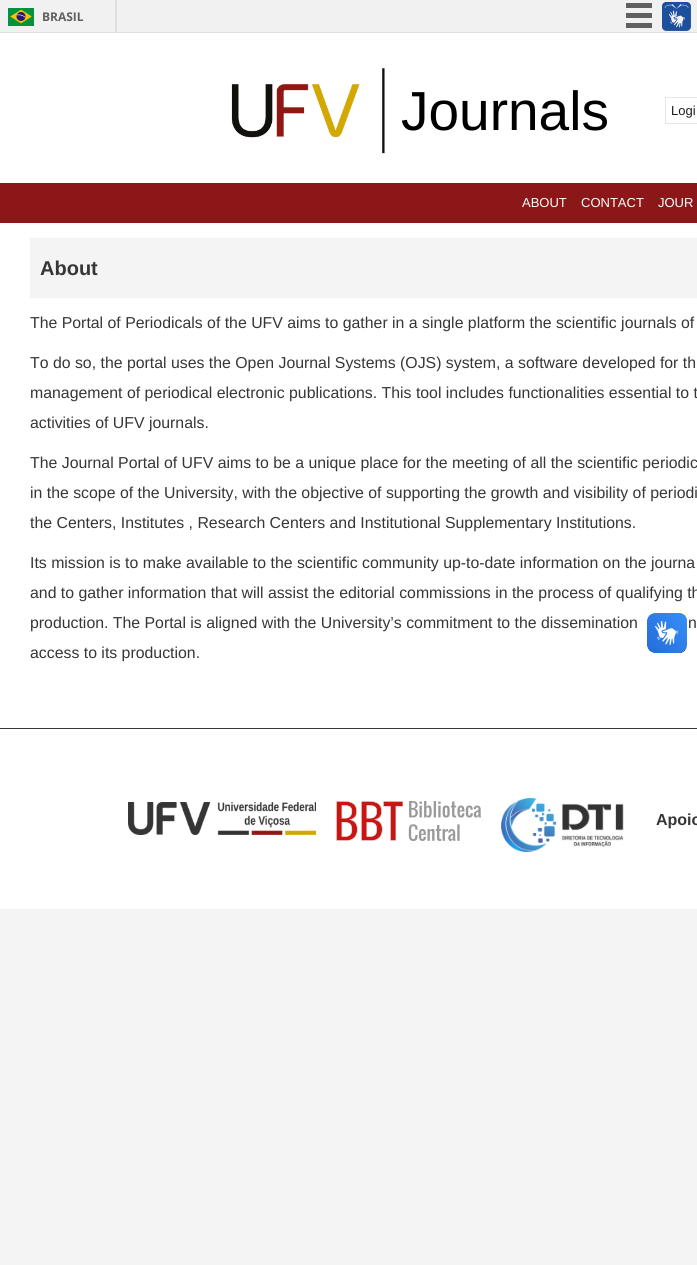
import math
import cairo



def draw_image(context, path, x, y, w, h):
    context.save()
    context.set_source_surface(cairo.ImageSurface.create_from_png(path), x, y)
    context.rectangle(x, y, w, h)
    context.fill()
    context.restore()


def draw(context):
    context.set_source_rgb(244 / 255, 244 / 255, 244 / 255)
    context.paint()
    context.set_source_rgb(241 / 255, 241 / 255, 241 / 255)
    context.rectangle(0, 0, 697, 32)
    context.fill()
    context.set_source_rgb(223 / 255, 223 / 255, 223 / 255)
    context.rectangle(0, 32, 697, 1)
    context.fill()
    context.rectangle(115, 0, 2, 32)
    context.fill()
    draw_image(context, "images/1.png", 8, 8, 26, 18)
    context.set_source_rgb(96 / 255, 96 / 255, 96 / 255)
    context.rectangle(626, 3, 26, 5)
    context.fill()
    context.rectangle(626, 13, 26, 5)
    context.fill()
    context.rectangle(626, 23, 26, 5)
    context.fill()
    draw_image(context, "images/2.png", 662, 2, 29, 29)
    context.set_source_rgb(1, 1, 1)
    context.rectangle(0, 33, 697, 876)
    context.fill()
    draw_image(context, "images/3.png", 231, 68, 154, 86)
    context.rectangle(665.5, 97.5, 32, 26)
    context.set_source_rgb(227 / 255, 230 / 255, 234 / 255)
    context.set_line_width(1)
    context.stroke()
    context.set_source_rgb(140 / 255, 23 / 255, 25 / 255)
    context.rectangle(0, 183, 697, 40)
    context.fill()
    context.set_source_rgb(244 / 255, 244 / 255, 244 / 255)
    context.rectangle(30, 238, 667, 60)
    context.fill()
    context.set_source_rgb(54 / 255, 54 / 255, 54 / 255)
    context.rectangle(0, 728, 697, 1)
    context.fill()
    draw_image(context, "images/4.png", 128, 802, 188, 33)
    draw_image(context, "images/5.png", 336, 801, 145, 40)
    draw_image(context, "images/6.png", 501, 798, 123, 54)
    draw_image(context, "images/7.png", 647, 613, 40, 40)
    draw_image(context, "images/8.png", 647, 613, 40, 40)
    context.select_font_face("Open Sans", cairo.FontSlant.NORMAL, cairo.FontWeight.BOLD)
    context.set_font_size(12)
    context.set_source_rgb(96 / 255, 96 / 255, 96 / 255)
    context.move_to(42, 21)
    context.show_text("BRASIL")
    context.select_font_face("Liberation Sans")
    context.set_font_size(55)
    context.set_source_rgb(0, 0, 0)
    context.move_to(401, 130)
    context.show_text("Journals")
    context.set_font_size(13)
    context.set_source_rgb(28 / 255, 28 / 255, 28 / 255)
    context.move_to(671, 115)
    context.show_text("Logi")
    context.set_source_rgb(1, 1, 1)
    context.move_to(522, 207)
    context.show_text("ABOUT")
    context.move_to(581, 207)
    context.show_text("CONTACT")
    context.move_to(658, 207)
    context.show_text("JOUR")
    context.select_font_face("Liberation Sans", cairo.FontSlant.NORMAL, cairo.FontWeight.BOLD)
    context.set_font_size(20)
    context.set_source_rgb(54 / 255, 54 / 255, 54 / 255)
    context.move_to(40, 275)
    context.show_text("About")
    context.select_font_face("Liberation Sans")
    context.set_font_size(15.85)
    context.move_to(30, 328)
    context.show_text("The Portal of Periodicals of the UFV aims to gather in a single platform the scientific journals of")
    context.move_to(30, 368)
    context.show_text("To do so, the portal uses the Open Journal Systems (OJS) system, a software developed for th")
    context.move_to(30, 398)
    context.show_text("management of periodical electronic publications. This tool includes functionalities essential to t")
    context.move_to(30, 428)
    context.show_text("activities of UFV journals.")
    context.move_to(30, 468)
    context.show_text("The Journal Portal of UFV aims to be a unique place for the meeting of all the scientific periodic")
    context.move_to(30, 498)
    context.show_text("in the scope of the University, with the objective of supporting the growth and visibility of periodi")
    context.move_to(30, 528)
    context.show_text("the Centers, Institutes , Research Centers and Institutional Supplementary Institutions.")
    context.move_to(30, 568)
    context.show_text("Its mission is to make available to the scientific community up-to-date information on the journa")
    context.move_to(30, 598)
    context.show_text("and to gather information that will assist the editorial commissions in the process of qualifying th")
    context.move_to(30, 628)
    context.show_text("production. The Portal is aligned with the University’s commitment to the dissemination")
    context.move_to(688, 628)
    context.show_text("n")
    context.move_to(30, 658)
    context.show_text("access to its production.")
    context.select_font_face("Liberation Sans", cairo.FontSlant.NORMAL, cairo.FontWeight.BOLD)
    context.set_font_size(16)
    context.move_to(656, 825)
    context.show_text("Apoio")


surface = cairo.ImageSurface(cairo.Format.RGB24, 697, 1265)
context = cairo.Context(surface)
options = cairo.FontOptions()
options.set_hint_metrics(cairo.HintMetrics.OFF)
options.set_hint_style(cairo.HintStyle.NONE)
context.set_font_options(options)
context.set_miter_limit(4)
draw(context)
surface.write_to_png("out.png")
